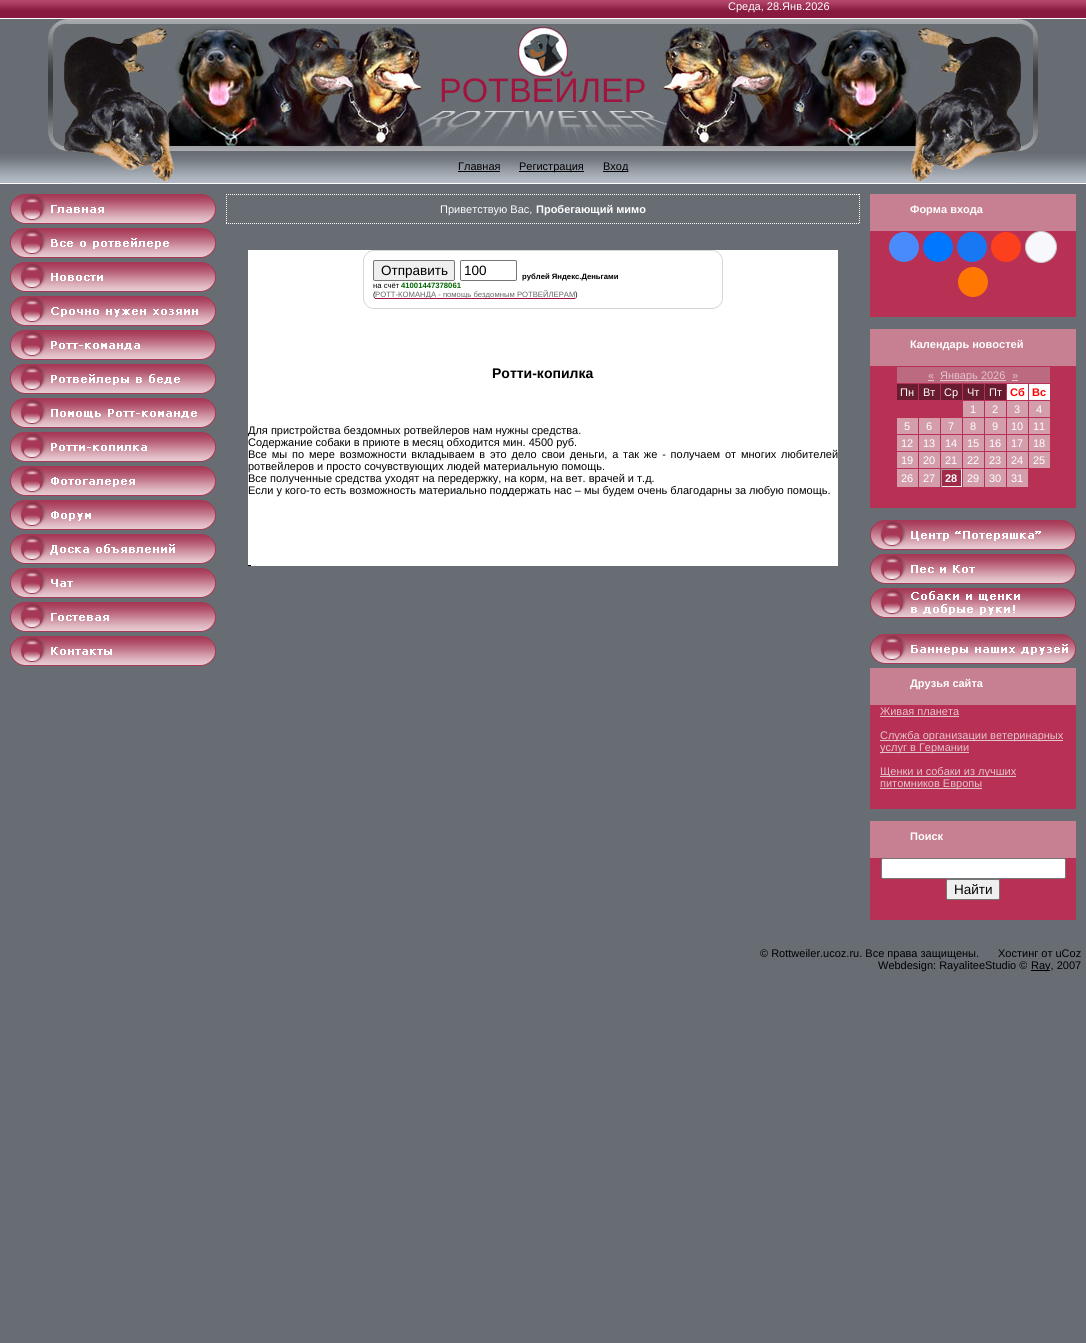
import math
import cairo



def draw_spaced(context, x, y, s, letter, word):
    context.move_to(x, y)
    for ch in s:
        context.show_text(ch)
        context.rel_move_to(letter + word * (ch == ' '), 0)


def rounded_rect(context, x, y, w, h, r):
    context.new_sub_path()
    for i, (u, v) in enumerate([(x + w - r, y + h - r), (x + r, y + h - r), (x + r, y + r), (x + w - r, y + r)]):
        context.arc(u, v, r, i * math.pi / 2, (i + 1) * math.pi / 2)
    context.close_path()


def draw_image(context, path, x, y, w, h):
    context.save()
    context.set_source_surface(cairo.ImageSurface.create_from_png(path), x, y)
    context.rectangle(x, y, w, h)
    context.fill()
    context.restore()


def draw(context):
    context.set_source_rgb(104 / 255, 109 / 255, 115 / 255)
    context.paint()
    draw_image(context, "images/1.png", 0, 0, 1086, 184)
    draw_image(context, "images/2.png", 48, 19, 310, 132)
    draw_image(context, "images/3.png", 358, 19, 370, 132)
    draw_image(context, "images/4.png", 728, 19, 310, 132)
    draw_image(context, "images/5.png", 72, 151, 942, 32)
    context.set_source_rgb(0, 0, 0)
    context.rectangle(458, 171, 42, 1)
    context.fill()
    context.rectangle(519, 171, 65, 1)
    context.fill()
    context.rectangle(603, 171, 25, 1)
    context.fill()
    draw_image(context, "images/6.png", 10, 194, 206, 30)
    draw_image(context, "images/7.png", 10, 228, 206, 30)
    draw_image(context, "images/8.png", 10, 262, 206, 30)
    draw_image(context, "images/9.png", 10, 296, 206, 30)
    draw_image(context, "images/10.png", 10, 330, 206, 30)
    draw_image(context, "images/11.png", 10, 364, 206, 30)
    draw_image(context, "images/12.png", 10, 398, 206, 30)
    draw_image(context, "images/13.png", 10, 432, 206, 30)
    draw_image(context, "images/14.png", 10, 466, 206, 30)
    draw_image(context, "images/15.png", 10, 500, 206, 30)
    draw_image(context, "images/16.png", 10, 534, 206, 30)
    draw_image(context, "images/17.png", 10, 568, 206, 30)
    draw_image(context, "images/18.png", 10, 602, 206, 30)
    draw_image(context, "images/19.png", 10, 636, 206, 30)
    context.new_path()
    context.move_to(226, 194.5)
    context.line_to(860, 194.5)
    context.set_source_rgb(1, 1, 1)
    context.set_line_width(1)
    context.set_dash([1, 1])
    context.stroke()
    context.new_path()
    context.move_to(859.5, 194)
    context.line_to(859.5, 224)
    context.stroke()
    context.new_path()
    context.move_to(226, 223.5)
    context.line_to(860, 223.5)
    context.stroke()
    context.new_path()
    context.move_to(226.5, 194)
    context.line_to(226.5, 224)
    context.stroke()
    context.rectangle(248, 250, 590, 316)
    context.fill()
    draw_image(context, "images/20.png", 713, 250, 10, 50)
    draw_image(context, "images/21.png", 373, 299, 350, 10)
    draw_image(context, "images/22.png", 363, 260, 10, 49)
    draw_image(context, "images/23.png", 363, 250, 350, 10)
    context.set_source_rgb(239 / 255, 239 / 255, 239 / 255)
    rounded_rect(context, 373.5, 260.5, 81, 20, 1.5)
    context.fill_preserve()
    context.set_source_rgb(118 / 255, 118 / 255, 118 / 255)
    context.set_dash([])
    context.stroke()
    rounded_rect(context, 460.5, 260.5, 56, 20, 1.5)
    context.stroke()
    context.set_source_rgb(0, 0, 0)
    context.rectangle(248, 565, 3, 1)
    context.fill()
    context.set_source_rgb(184 / 255, 48 / 255, 84 / 255)
    context.rectangle(870, 231, 206, 86)
    context.fill()
    context.set_source_rgb(198 / 255, 128 / 255, 146 / 255)
    context.rectangle(870, 194, 206, 37)
    context.fill()
    context.set_source_rgb(73 / 255, 139 / 255, 250 / 255)
    context.arc(904, 247, 15, 0, 2 * math.pi)
    context.fill()
    context.set_source_rgb(0, 119 / 255, 1)
    context.arc(938, 247, 15, 0, 2 * math.pi)
    context.fill()
    context.set_source_rgb(24 / 255, 119 / 255, 242 / 255)
    context.arc(972, 247, 15, 0, 2 * math.pi)
    context.fill()
    context.set_source_rgb(252 / 255, 63 / 255, 29 / 255)
    context.arc(1006, 247, 15, 0, 2 * math.pi)
    context.fill()
    context.set_source_rgb(248 / 255, 248 / 255, 252 / 255)
    context.arc(1041, 247, 15.5, 0, 2 * math.pi)
    context.fill_preserve()
    context.set_source_rgb(196 / 255, 196 / 255, 196 / 255)
    context.stroke()
    context.set_source_rgb(1, 119 / 255, 0)
    context.arc(973, 282, 15, 0, 2 * math.pi)
    context.fill()
    context.set_source_rgb(184 / 255, 48 / 255, 84 / 255)
    context.rectangle(870, 366, 206, 142)
    context.fill()
    context.set_source_rgb(198 / 255, 128 / 255, 146 / 255)
    context.rectangle(870, 329, 206, 37)
    context.fill()
    context.set_source_rgb(188 / 255, 106 / 255, 128 / 255)
    context.rectangle(897, 367, 153, 16)
    context.fill()
    context.set_source_rgb(228 / 255, 196 / 255, 204 / 255)
    context.rectangle(928, 380, 6, 1)
    context.fill()
    context.rectangle(940, 380, 66, 1)
    context.fill()
    context.rectangle(1012, 380, 6, 1)
    context.fill()
    context.set_source_rgb(105 / 255, 28 / 255, 48 / 255)
    context.rectangle(897, 384, 21, 16)
    context.fill()
    context.rectangle(919, 384, 21, 16)
    context.fill()
    context.rectangle(941, 384, 21, 16)
    context.fill()
    context.rectangle(963, 384, 21, 16)
    context.fill()
    context.rectangle(985, 384, 21, 16)
    context.fill()
    context.set_source_rgb(1, 1, 1)
    context.rectangle(1007, 384, 21, 16)
    context.fill()
    context.rectangle(1029, 384, 21, 16)
    context.fill()
    context.set_source_rgb(211 / 255, 157 / 255, 172 / 255)
    context.rectangle(963, 401, 21, 16)
    context.fill()
    context.rectangle(985, 401, 21, 16)
    context.fill()
    context.rectangle(1007, 401, 21, 16)
    context.fill()
    context.rectangle(1029, 401, 21, 16)
    context.fill()
    context.rectangle(897, 418, 21, 16)
    context.fill()
    context.rectangle(919, 418, 21, 16)
    context.fill()
    context.rectangle(941, 418, 21, 16)
    context.fill()
    context.rectangle(963, 418, 21, 16)
    context.fill()
    context.rectangle(985, 418, 21, 16)
    context.fill()
    context.rectangle(1007, 418, 21, 16)
    context.fill()
    context.rectangle(1029, 418, 21, 16)
    context.fill()
    context.rectangle(897, 435, 21, 16)
    context.fill()
    context.rectangle(919, 435, 21, 16)
    context.fill()
    context.rectangle(941, 435, 21, 16)
    context.fill()
    context.rectangle(963, 435, 21, 16)
    context.fill()
    context.rectangle(985, 435, 21, 16)
    context.fill()
    context.rectangle(1007, 435, 21, 16)
    context.fill()
    context.rectangle(1029, 435, 21, 16)
    context.fill()
    context.rectangle(897, 452, 21, 16)
    context.fill()
    context.rectangle(919, 452, 21, 16)
    context.fill()
    context.rectangle(941, 452, 21, 16)
    context.fill()
    context.rectangle(963, 452, 21, 16)
    context.fill()
    context.rectangle(985, 452, 21, 16)
    context.fill()
    context.rectangle(1007, 452, 21, 16)
    context.fill()
    context.rectangle(1029, 452, 21, 16)
    context.fill()
    context.rectangle(897, 469, 21, 18)
    context.fill()
    context.rectangle(919, 469, 21, 18)
    context.fill()
    context.set_source_rgb(161 / 255, 42 / 255, 73 / 255)
    context.rectangle(942, 470, 19, 16)
    context.fill()
    context.set_source_rgb(159 / 255, 159 / 255, 159 / 255)
    context.rectangle(941, 469, 21, 1)
    context.fill()
    context.set_source_rgb(238 / 255, 238 / 255, 238 / 255)
    context.rectangle(961, 469, 1, 18)
    context.fill()
    context.rectangle(941, 486, 21, 1)
    context.fill()
    context.set_source_rgb(159 / 255, 159 / 255, 159 / 255)
    context.rectangle(941, 469, 1, 18)
    context.fill()
    context.set_source_rgb(211 / 255, 157 / 255, 172 / 255)
    context.rectangle(963, 469, 21, 18)
    context.fill()
    context.rectangle(985, 469, 21, 18)
    context.fill()
    context.rectangle(1007, 469, 21, 18)
    context.fill()
    draw_image(context, "images/24.png", 870, 520, 206, 30)
    draw_image(context, "images/25.png", 870, 554, 206, 30)
    draw_image(context, "images/26.png", 870, 588, 206, 30)
    draw_image(context, "images/27.png", 870, 634, 206, 30)
    context.set_source_rgb(184 / 255, 48 / 255, 84 / 255)
    context.rectangle(870, 705, 206, 104)
    context.fill()
    context.set_source_rgb(198 / 255, 128 / 255, 146 / 255)
    context.rectangle(870, 668, 206, 37)
    context.fill()
    context.set_source_rgb(228 / 255, 196 / 255, 204 / 255)
    context.rectangle(880, 716, 79, 1)
    context.fill()
    context.rectangle(880, 740, 183, 1)
    context.fill()
    context.rectangle(880, 752, 89, 1)
    context.fill()
    context.rectangle(880, 776, 136, 1)
    context.fill()
    context.rectangle(880, 788, 102, 1)
    context.fill()
    context.set_source_rgb(184 / 255, 48 / 255, 84 / 255)
    context.rectangle(870, 858, 206, 62)
    context.fill()
    context.set_source_rgb(198 / 255, 128 / 255, 146 / 255)
    context.rectangle(870, 821, 206, 37)
    context.fill()
    context.set_source_rgb(1, 1, 1)
    rounded_rect(context, 881.5, 858.5, 184, 20, 1.5)
    context.fill_preserve()
    context.set_source_rgb(118 / 255, 118 / 255, 118 / 255)
    context.stroke()
    context.set_source_rgb(239 / 255, 239 / 255, 239 / 255)
    rounded_rect(context, 946.5, 879.5, 53, 20, 1.5)
    context.fill_preserve()
    context.set_source_rgb(118 / 255, 118 / 255, 118 / 255)
    context.stroke()
    context.set_source_rgb(0, 0, 0)
    context.rectangle(1031, 970, 19, 1)
    context.fill()
    context.select_font_face("Liberation Sans")
    context.set_font_size(11)
    context.set_source_rgb(1, 1, 1)
    context.move_to(728, 10)
    context.show_text("Среда, 28.Янв.2026")
    context.set_font_size(34)
    context.set_source_rgb(160 / 255, 21 / 255, 62 / 255)
    context.move_to(439, 102)
    context.show_text("РОТВЕЙЛЕР")
    context.set_font_size(11)
    context.set_source_rgb(0, 0, 0)
    context.move_to(458, 170)
    context.show_text("Главная")
    context.move_to(519, 170)
    context.show_text("Регистрация")
    context.move_to(603, 170)
    context.show_text("Вход")
    context.set_source_rgb(1, 1, 1)
    context.move_to(440, 213)
    context.show_text("Приветствую Вас,")
    context.select_font_face("Liberation Sans", cairo.FontSlant.NORMAL, cairo.FontWeight.BOLD)
    context.move_to(536, 213)
    context.show_text("Пробегающий мимо")
    context.select_font_face("Liberation Sans")
    context.set_font_size(13.5)
    context.set_source_rgb(0, 0, 0)
    context.move_to(381, 275)
    context.show_text("Отправить")
    context.move_to(464, 275)
    context.show_text("100")
    context.select_font_face("Liberation Sans", cairo.FontSlant.NORMAL, cairo.FontWeight.BOLD)
    context.set_font_size(7.7)
    context.move_to(522, 279)
    context.show_text("рублей Яндекс.Деньгами")
    context.select_font_face("Liberation Sans")
    context.move_to(373, 288)
    context.show_text("на счёт")
    context.select_font_face("Liberation Sans", cairo.FontSlant.NORMAL, cairo.FontWeight.BOLD)
    context.set_source_rgb(0, 102 / 255, 0)
    context.move_to(401, 288)
    context.show_text("41001447378061")
    context.select_font_face("Liberation Sans")
    context.set_source_rgb(0, 0, 0)
    context.move_to(373, 297)
    context.show_text("(")
    context.set_source_rgb(160 / 255, 21 / 255, 62 / 255)
    context.rectangle(375, 298, 200, 1)
    context.fill()
    context.set_source_rgb(102 / 255, 102 / 255, 102 / 255)
    context.move_to(375, 297)
    context.show_text("РОТТ-КОМАНДА - помощь бездомным РОТВЕЙЛЕРАМ")
    context.set_source_rgb(0, 0, 0)
    context.move_to(575, 297)
    context.show_text(")")
    context.select_font_face("Liberation Sans", cairo.FontSlant.NORMAL, cairo.FontWeight.BOLD)
    context.set_font_size(14)
    context.move_to(492, 378)
    context.show_text("Ротти-копилка")
    context.select_font_face("Liberation Sans")
    context.set_font_size(11)
    context.move_to(248, 434)
    context.show_text("Для пристройства бездомных ротвейлеров нам нужны средства.")
    context.move_to(248, 446)
    context.show_text("Содержание собаки в приюте в месяц обходится мин. 4500 руб.")
    draw_spaced(context, 248, 458, "Все мы по мере возможности вкладываем в это дело свои деньги, а так же - получаем от многих любителей", 0, 1.75)
    context.move_to(248, 470)
    context.show_text("ротвейлеров и просто сочувствующих людей материальную помощь.")
    context.move_to(248, 482)
    context.show_text("Все полученные средства уходят на передержку, на корм, на вет. врачей и т.д.")
    context.move_to(248, 494)
    context.show_text("Если у кого-то есть возможность материально поддержать нас – мы будем очень благодарны за любую помощь.")
    context.select_font_face("Liberation Sans", cairo.FontSlant.NORMAL, cairo.FontWeight.BOLD)
    context.set_source_rgb(1, 1, 1)
    context.move_to(910, 213)
    context.show_text("Форма входа")
    context.move_to(910, 348)
    context.show_text("Календарь новостей")
    context.select_font_face("Liberation Sans")
    context.set_source_rgb(228 / 255, 196 / 255, 204 / 255)
    context.move_to(928, 379)
    context.show_text("«")
    context.move_to(940, 379)
    context.show_text("Январь 2026")
    context.move_to(1012, 379)
    context.show_text("»")
    context.set_source_rgb(1, 1, 1)
    context.move_to(900, 396)
    context.show_text("Пн")
    context.move_to(923, 396)
    context.show_text("Вт")
    context.move_to(944, 396)
    context.show_text("Ср")
    context.move_to(967, 396)
    context.show_text("Чт")
    context.move_to(989, 396)
    context.show_text("Пт")
    context.select_font_face("Liberation Sans", cairo.FontSlant.NORMAL, cairo.FontWeight.BOLD)
    context.set_source_rgb(1, 0, 0)
    context.move_to(1010, 396)
    context.show_text("Сб")
    context.move_to(1032, 396)
    context.show_text("Вс")
    context.select_font_face("Liberation Sans")
    context.set_source_rgb(1, 1, 1)
    context.move_to(970, 413)
    context.show_text("1")
    context.move_to(992, 413)
    context.show_text("2")
    context.move_to(1014, 413)
    context.show_text("3")
    context.move_to(1036, 413)
    context.show_text("4")
    context.move_to(904, 430)
    context.show_text("5")
    context.move_to(926, 430)
    context.show_text("6")
    context.move_to(948, 430)
    context.show_text("7")
    context.move_to(970, 430)
    context.show_text("8")
    context.move_to(992, 430)
    context.show_text("9")
    context.move_to(1011, 430)
    context.show_text("10")
    context.move_to(1033, 430)
    context.show_text("11")
    context.move_to(901, 447)
    context.show_text("12")
    context.move_to(923, 447)
    context.show_text("13")
    context.move_to(945, 447)
    context.show_text("14")
    context.move_to(967, 447)
    context.show_text("15")
    context.move_to(989, 447)
    context.show_text("16")
    context.move_to(1011, 447)
    context.show_text("17")
    context.move_to(1033, 447)
    context.show_text("18")
    context.move_to(901, 464)
    context.show_text("19")
    context.move_to(923, 464)
    context.show_text("20")
    context.move_to(945, 464)
    context.show_text("21")
    context.move_to(967, 464)
    context.show_text("22")
    context.move_to(989, 464)
    context.show_text("23")
    context.move_to(1011, 464)
    context.show_text("24")
    context.move_to(1033, 464)
    context.show_text("25")
    context.move_to(901, 482)
    context.show_text("26")
    context.move_to(923, 482)
    context.show_text("27")
    context.select_font_face("Liberation Sans", cairo.FontSlant.NORMAL, cairo.FontWeight.BOLD)
    context.move_to(945, 482)
    context.show_text("28")
    context.select_font_face("Liberation Sans")
    context.move_to(967, 482)
    context.show_text("29")
    context.move_to(989, 482)
    context.show_text("30")
    context.move_to(1011, 482)
    context.show_text("31")
    context.select_font_face("Liberation Sans", cairo.FontSlant.NORMAL, cairo.FontWeight.BOLD)
    context.move_to(910, 687)
    context.show_text("Друзья сайта")
    context.select_font_face("Liberation Sans")
    context.set_source_rgb(228 / 255, 196 / 255, 204 / 255)
    context.move_to(880, 715)
    context.show_text("Живая планета")
    context.move_to(880, 739)
    context.show_text("Служба организации ветеринарных")
    context.move_to(880, 751)
    context.show_text("услуг в Германии")
    context.move_to(880, 775)
    context.show_text("Щенки и собаки из лучших")
    context.move_to(880, 787)
    context.show_text("питомников Европы")
    context.select_font_face("Liberation Sans", cairo.FontSlant.NORMAL, cairo.FontWeight.BOLD)
    context.set_source_rgb(1, 1, 1)
    context.move_to(910, 840)
    context.show_text("Поиск")
    context.select_font_face("Liberation Sans")
    context.set_font_size(13.5)
    context.set_source_rgb(0, 0, 0)
    context.move_to(954, 894)
    context.show_text("Найти")
    context.set_font_size(11)
    context.move_to(760, 957)
    context.show_text("© Rottweiler.ucoz.ru. Все права защищены.")
    context.move_to(998, 957)
    context.show_text("Хостинг от uCoz")
    context.move_to(878, 969)
    context.show_text("Webdesign: RayaliteeStudio ©")
    context.move_to(1031, 969)
    context.show_text("Ray, 2007")


surface = cairo.ImageSurface(cairo.Format.RGB24, 1086, 1343)
context = cairo.Context(surface)
options = cairo.FontOptions()
options.set_hint_metrics(cairo.HintMetrics.OFF)
options.set_hint_style(cairo.HintStyle.NONE)
context.set_font_options(options)
context.set_miter_limit(4)
draw(context)
surface.write_to_png("out.png")
